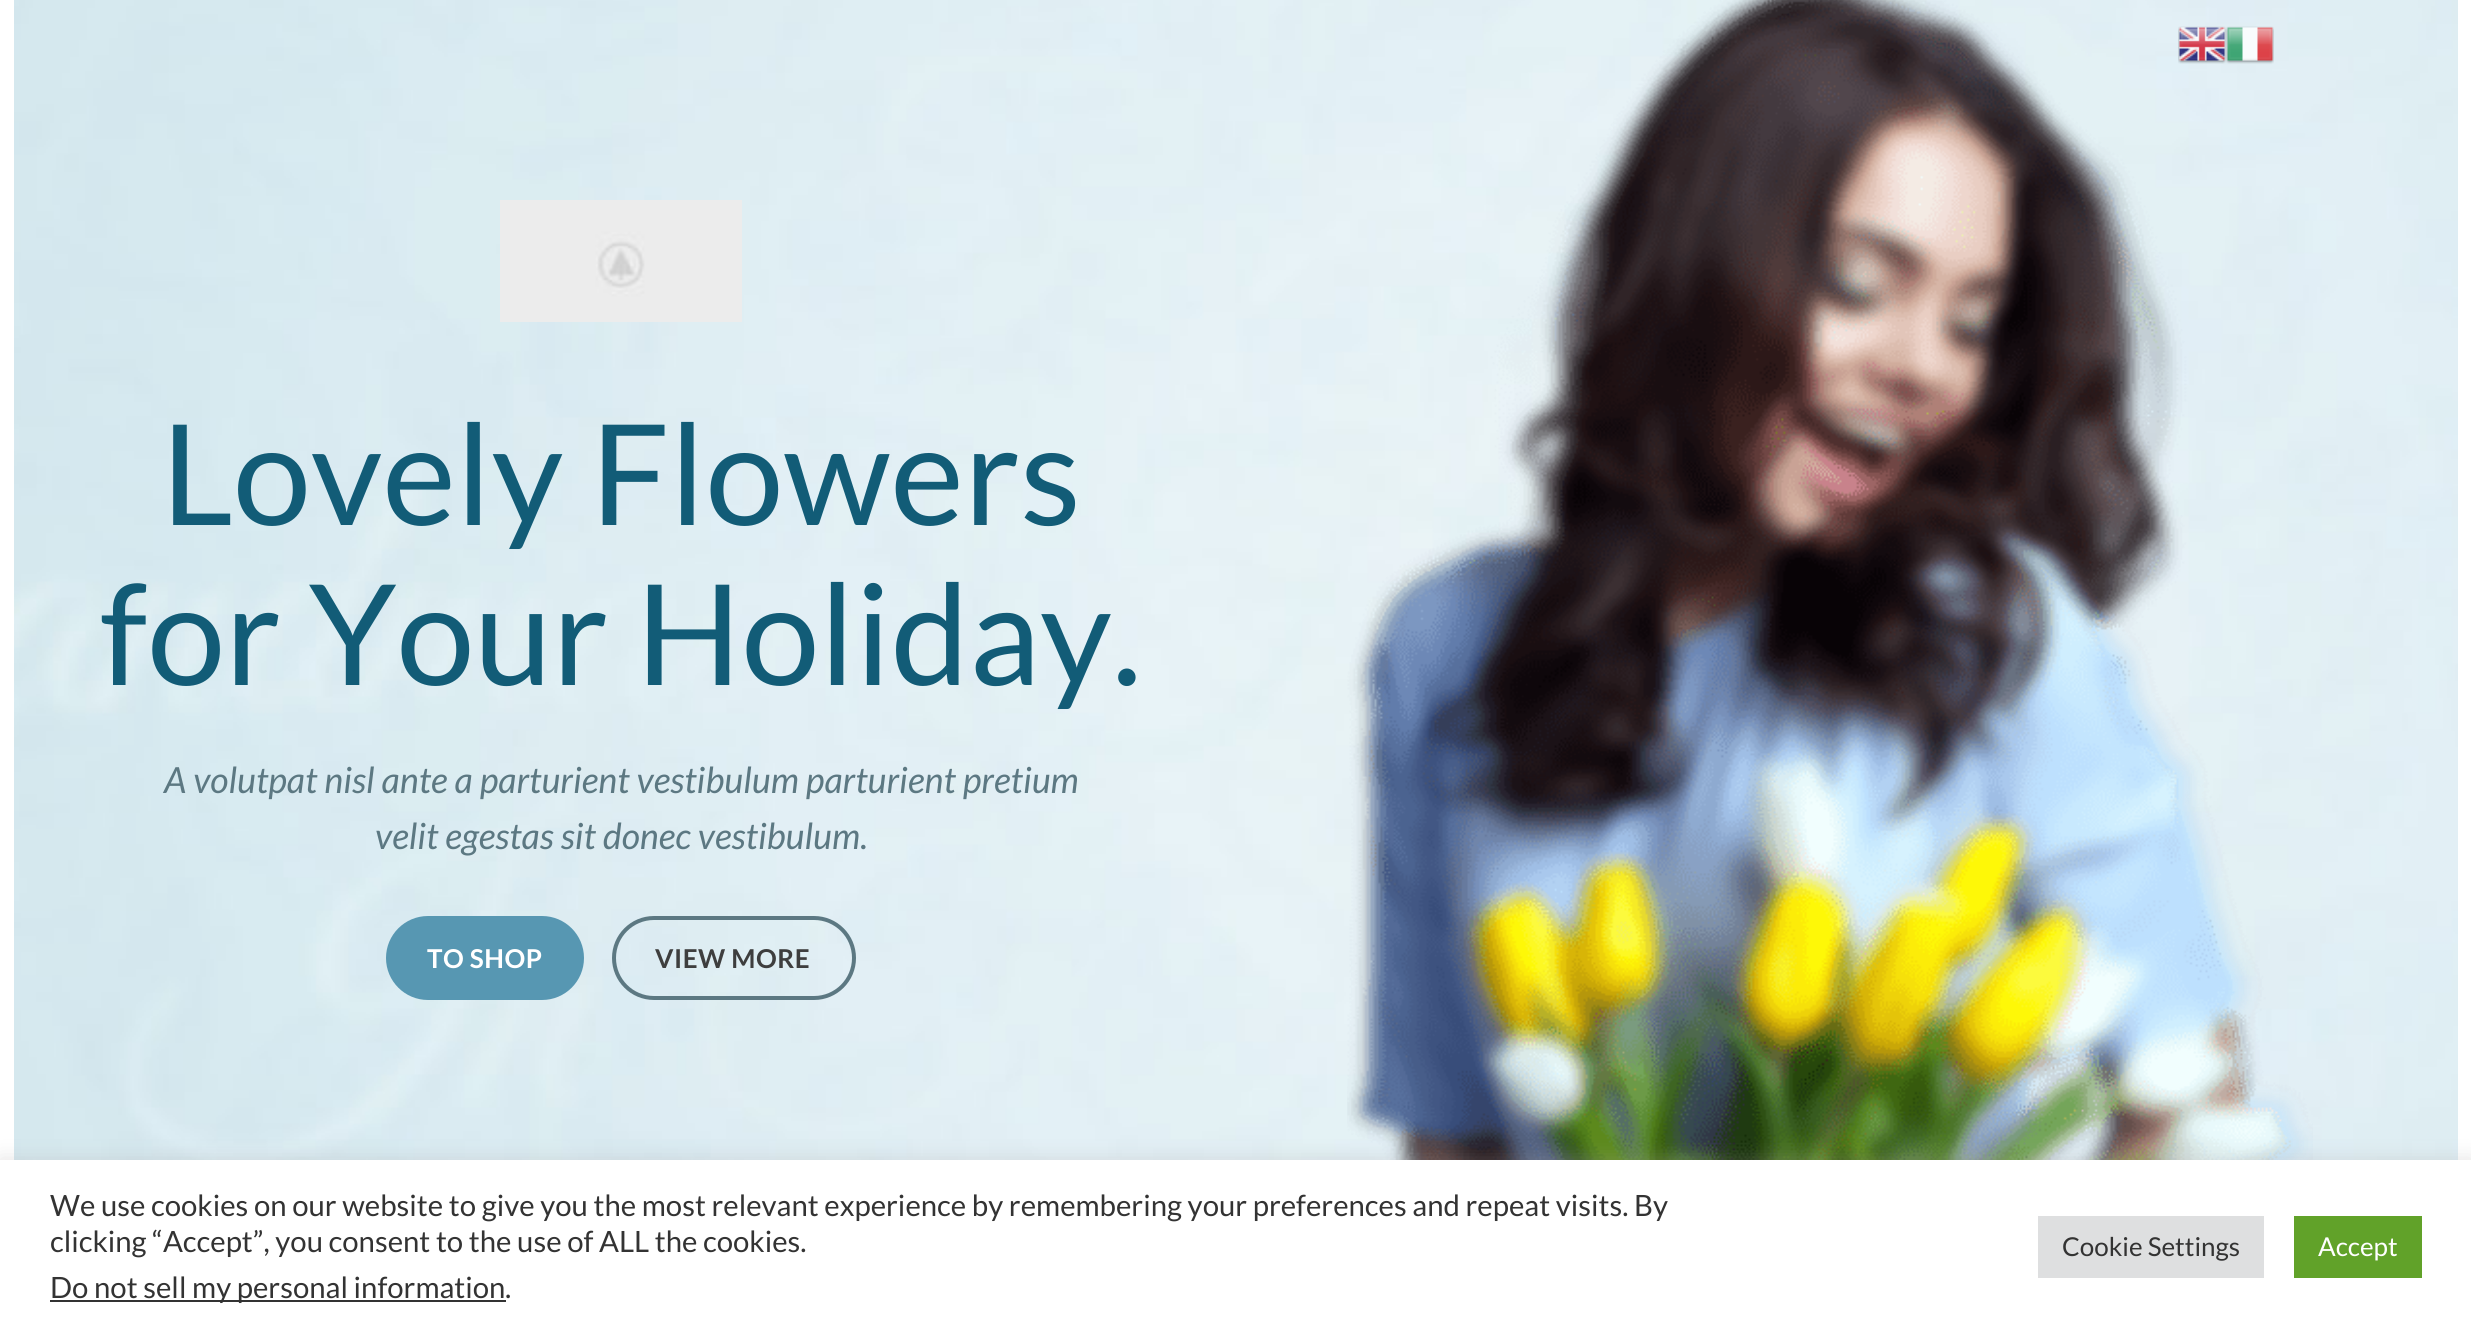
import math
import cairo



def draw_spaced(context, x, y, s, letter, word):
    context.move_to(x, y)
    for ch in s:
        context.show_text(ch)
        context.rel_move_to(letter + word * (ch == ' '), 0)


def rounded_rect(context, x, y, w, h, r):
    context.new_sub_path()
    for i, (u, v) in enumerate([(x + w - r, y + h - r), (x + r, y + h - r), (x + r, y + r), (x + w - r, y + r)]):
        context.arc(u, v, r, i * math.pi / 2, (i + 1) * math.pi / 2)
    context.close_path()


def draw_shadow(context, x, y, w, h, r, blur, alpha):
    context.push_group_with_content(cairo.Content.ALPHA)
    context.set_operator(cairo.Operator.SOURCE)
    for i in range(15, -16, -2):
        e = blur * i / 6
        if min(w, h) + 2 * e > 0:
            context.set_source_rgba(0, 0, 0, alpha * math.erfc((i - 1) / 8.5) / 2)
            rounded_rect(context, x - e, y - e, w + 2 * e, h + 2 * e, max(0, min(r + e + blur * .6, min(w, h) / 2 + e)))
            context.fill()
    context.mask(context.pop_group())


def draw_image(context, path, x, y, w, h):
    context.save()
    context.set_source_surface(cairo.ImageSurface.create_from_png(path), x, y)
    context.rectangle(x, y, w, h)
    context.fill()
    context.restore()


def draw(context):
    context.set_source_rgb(1, 1, 1)
    context.paint()
    draw_image(context, "images/3.png", 14, 0, 2444, 1160)
    draw_image(context, "images/5.png", 1347, 0, 966, 1160)
    draw_image(context, "images/1.png", 2178, 26, 48, 38)
    draw_image(context, "images/2.png", 2226, 26, 48, 38)
    draw_image(context, "images/4.png", 500, 200, 242, 122)
    context.set_source_rgb(87 / 255, 151 / 255, 178 / 255)
    rounded_rect(context, 386, 916, 198, 84, 42)
    context.fill()
    rounded_rect(context, 614, 918, 240, 80, 40)
    context.set_source_rgb(92 / 255, 120 / 255, 130 / 255)
    context.set_line_width(4)
    context.stroke()
    context.set_source_rgb(172 / 255, 171 / 255, 171 / 255)
    draw_shadow(context, 0, 1158, 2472, 174, 0, 10, 0.3)
    context.set_source_rgb(1, 1, 1)
    context.rectangle(0, 1160, 2471, 174)
    context.fill()
    context.set_source_rgb(51 / 255, 51 / 255, 51 / 255)
    context.rectangle(50, 1300, 456, 2)
    context.fill()
    context.set_source_rgb(222 / 255, 223 / 255, 224 / 255)
    context.rectangle(2038, 1216, 226, 62)
    context.fill()
    context.set_source_rgb(97 / 255, 162 / 255, 41 / 255)
    context.rectangle(2294, 1216, 128, 62)
    context.fill()
    context.select_font_face("Lato")
    context.set_font_size(140)
    context.set_source_rgb(18 / 255, 92 / 255, 119 / 255)
    context.move_to(161, 525)
    context.show_text("Lovely Flowers")
    context.move_to(100, 685)
    context.show_text("for Your Holiday.")
    context.select_font_face("Lato", cairo.FontSlant.ITALIC)
    context.set_font_size(36)
    context.set_source_rgb(92 / 255, 120 / 255, 130 / 255)
    context.move_to(164, 793)
    context.show_text("A volutpat nisl ante a parturient vestibulum parturient pretium")
    context.move_to(375, 849)
    context.show_text("velit egestas sit donec vestibulum.")
    context.select_font_face("Lato", cairo.FontSlant.NORMAL, cairo.FontWeight.BOLD)
    context.set_font_size(26)
    context.set_source_rgb(1, 1, 1)
    draw_spaced(context, 427, 968, "TO SHOP", 0.5, 0)
    context.set_source_rgb(62 / 255, 62 / 255, 62 / 255)
    draw_spaced(context, 655, 968, "VIEW MORE", 0.5, 0)
    context.select_font_face("Lato")
    context.set_font_size(29.33)
    context.set_source_rgb(51 / 255, 51 / 255, 51 / 255)
    context.move_to(50, 1216)
    context.show_text("We use cookies on our website to give you the most relevant experience by remembering your preferences and repeat visits. By")
    context.move_to(50, 1252)
    context.show_text("clicking “Accept”, you consent to the use of ALL the cookies.")
    context.move_to(50, 1298)
    context.show_text("Do not sell my personal information")
    context.move_to(505, 1298)
    context.show_text(".")
    context.set_font_size(26)
    context.move_to(2062, 1256)
    context.show_text("Cookie Settings")
    context.set_source_rgb(1, 1, 1)
    context.move_to(2318, 1256)
    context.show_text("Accept")


surface = cairo.ImageSurface(cairo.Format.RGB24, 2471, 1334)
context = cairo.Context(surface)
options = cairo.FontOptions()
options.set_hint_metrics(cairo.HintMetrics.OFF)
options.set_hint_style(cairo.HintStyle.NONE)
context.set_font_options(options)
context.set_miter_limit(4)
draw(context)
surface.write_to_png("out.png")
